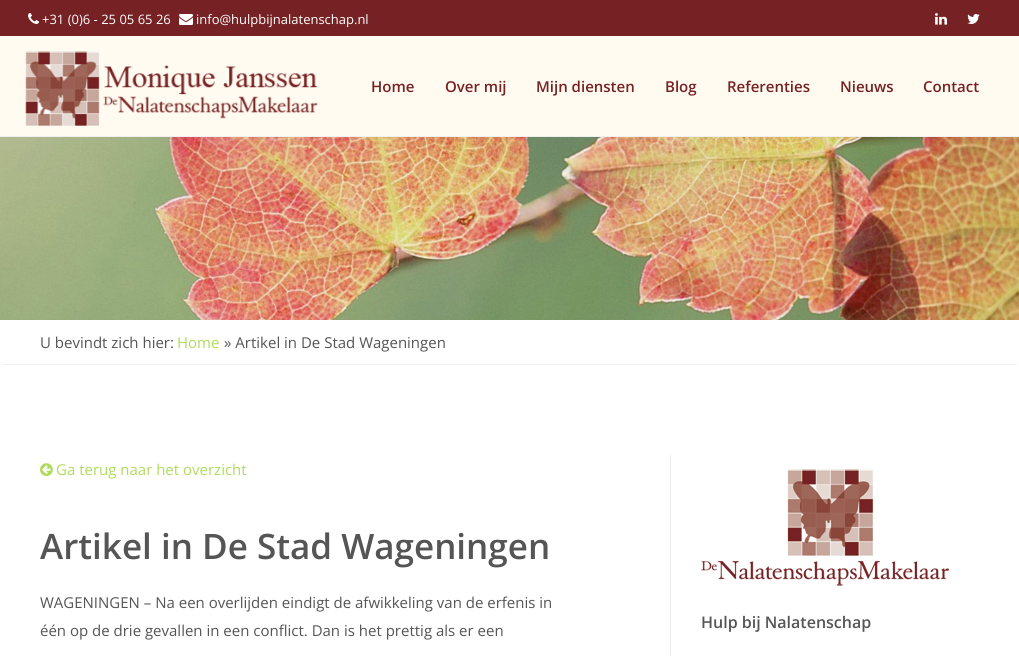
import math
import cairo



def draw_image(context, path, x, y, w, h):
    context.save()
    context.set_source_surface(cairo.ImageSurface.create_from_png(path), x, y)
    context.rectangle(x, y, w, h)
    context.fill()
    context.restore()


def draw(context):
    context.set_source_rgb(1, 1, 1)
    context.paint()
    context.set_source_rgb(1, 251 / 255, 240 / 255)
    context.rectangle(0, 36, 1019, 100)
    context.fill()
    context.set_source_rgb(239 / 255, 239 / 255, 239 / 255)
    context.rectangle(0, 136, 1019, 1)
    context.fill()
    context.set_source_rgb(118 / 255, 33 / 255, 35 / 255)
    context.rectangle(0, 0, 1019, 36)
    context.fill()
    draw_image(context, "images/1.png", 28, 13, 11, 11)
    draw_image(context, "images/2.png", 179, 14, 14, 11)
    draw_image(context, "images/3.png", 935, 13, 12, 12)
    draw_image(context, "images/4.png", 967, 14, 13, 10)
    draw_image(context, "images/5.png", 25, 51, 293, 75)
    draw_image(context, "images/6.png", 0, 137, 1019, 183)
    context.set_source_rgb(239 / 255, 239 / 255, 239 / 255)
    context.rectangle(2, 364, 1015, 1)
    context.fill()
    context.set_source_rgb(233 / 255, 233 / 255, 233 / 255)
    context.rectangle(670, 455, 1, 201)
    context.fill()
    draw_image(context, "images/7.png", 40, 463, 13, 14)
    draw_image(context, "images/8.png", 701, 469, 248, 117)
    context.select_font_face("Open Sans")
    context.set_font_size(13)
    context.set_source_rgb(1, 1, 1)
    context.move_to(42, 24)
    context.show_text("+31 (0)6 - 25 05 65 26")
    context.move_to(196, 24)
    context.show_text("info@hulpbijnalatenschap.nl")
    context.select_font_face("Open Sans SemiBold")
    context.set_font_size(15)
    context.set_source_rgb(118 / 255, 33 / 255, 35 / 255)
    context.move_to(371, 92)
    context.show_text("Home")
    context.move_to(445, 92)
    context.show_text("Over mij")
    context.move_to(536, 92)
    context.show_text("Mijn diensten")
    context.move_to(665, 92)
    context.show_text("Blog")
    context.move_to(727, 92)
    context.show_text("Referenties")
    context.move_to(840, 92)
    context.show_text("Nieuws")
    context.move_to(923, 92)
    context.show_text("Contact")
    context.select_font_face("Open Sans")
    context.set_source_rgb(85 / 255, 85 / 255, 85 / 255)
    context.move_to(40, 348)
    context.show_text("U bevindt zich hier:")
    context.set_source_rgb(175 / 255, 219 / 255, 93 / 255)
    context.move_to(177, 348)
    context.show_text("Home")
    context.set_source_rgb(85 / 255, 85 / 255, 85 / 255)
    context.move_to(224, 348)
    context.show_text("» Artikel in De Stad Wageningen")
    context.set_source_rgb(175 / 255, 219 / 255, 93 / 255)
    context.move_to(56, 475)
    context.show_text("Ga terug naar het overzicht")
    context.select_font_face("Open Sans SemiBold")
    context.set_font_size(35)
    context.set_source_rgb(85 / 255, 85 / 255, 85 / 255)
    context.move_to(40, 559)
    context.show_text("Artikel in De Stad Wageningen")
    context.select_font_face("Open Sans")
    context.set_font_size(15)
    context.move_to(40, 608)
    context.show_text("WAGENINGEN – Na een overlijden eindigt de afwikkeling van de erfenis in")
    context.move_to(40, 636)
    context.show_text("één op de drie gevallen in een conflict. Dan is het prettig als er een")
    context.select_font_face("Open Sans SemiBold")
    context.set_font_size(16)
    context.move_to(701, 628)
    context.show_text("Hulp bij Nalatenschap")


surface = cairo.ImageSurface(cairo.Format.RGB24, 1019, 656)
context = cairo.Context(surface)
options = cairo.FontOptions()
options.set_hint_metrics(cairo.HintMetrics.OFF)
options.set_hint_style(cairo.HintStyle.NONE)
context.set_font_options(options)
context.set_miter_limit(4)
draw(context)
surface.write_to_png("out.png")
